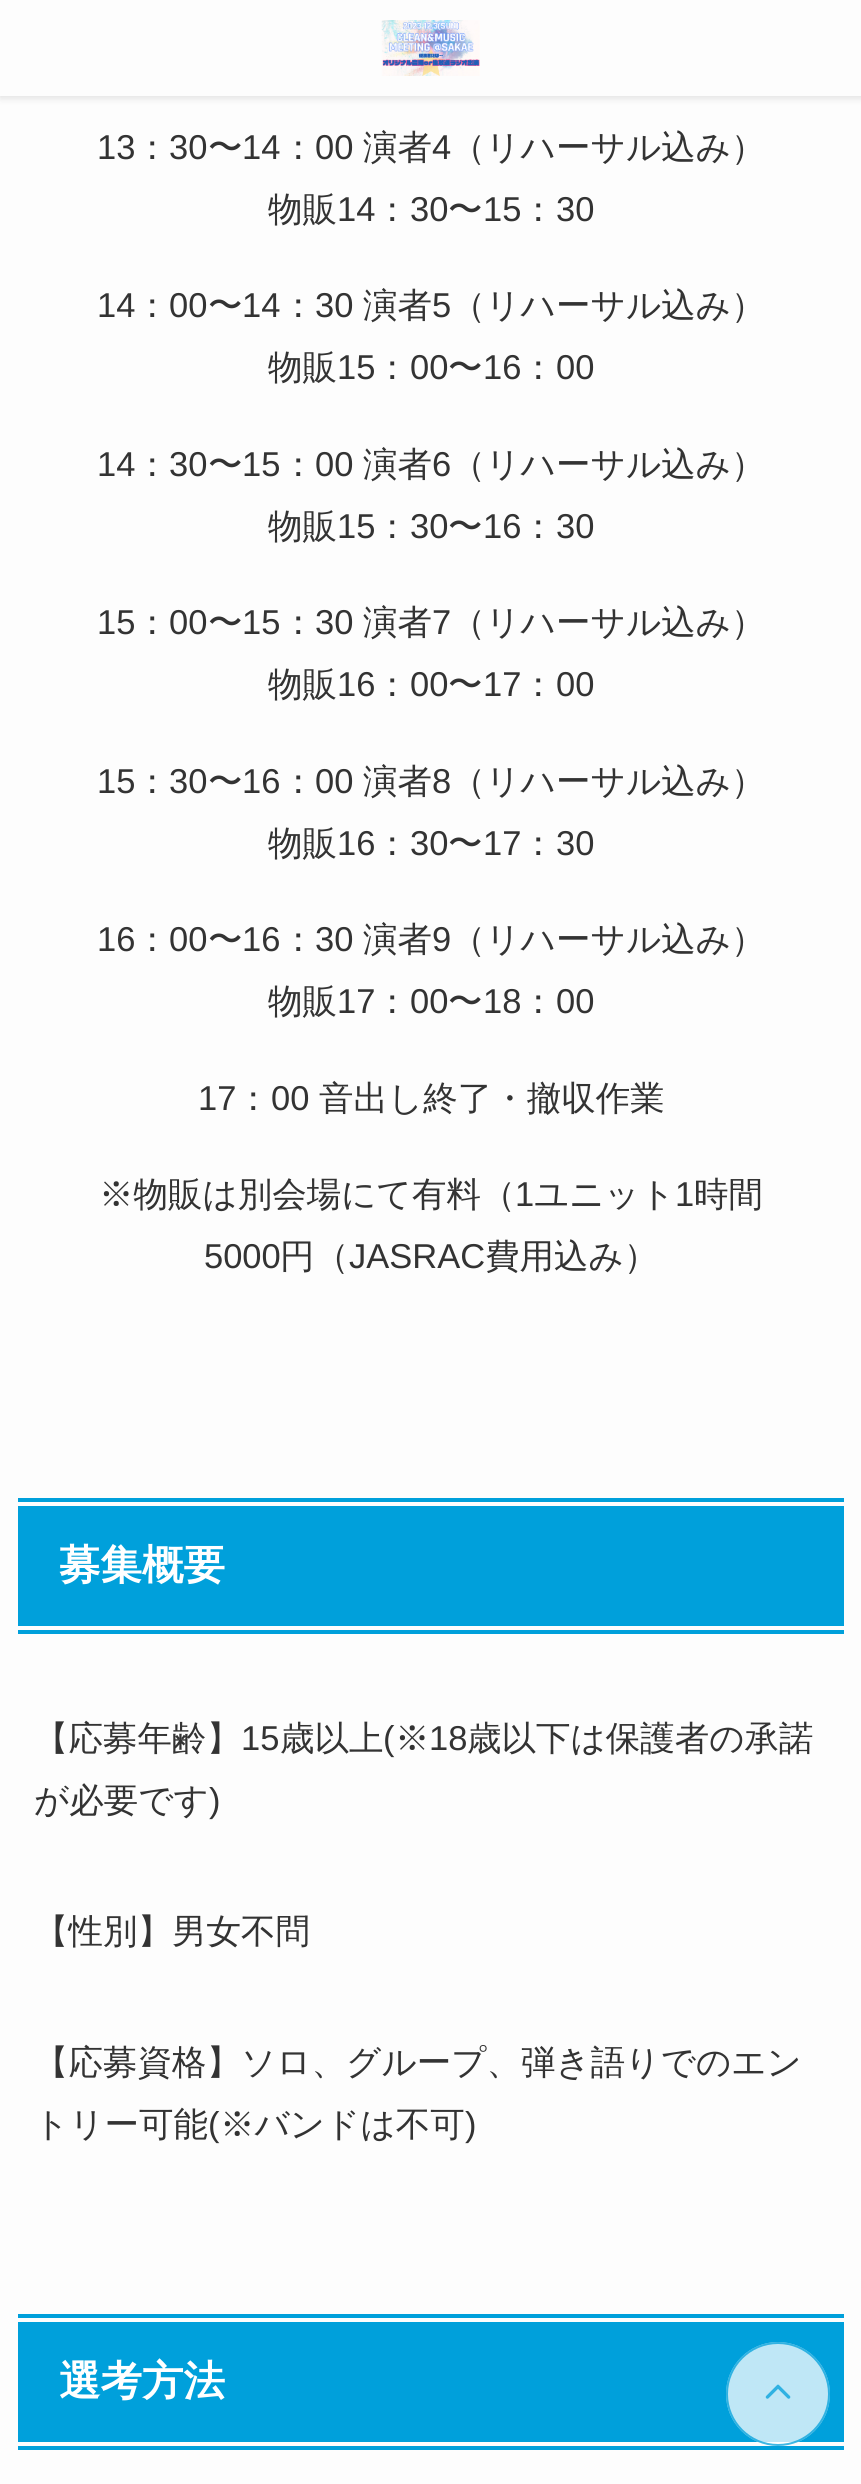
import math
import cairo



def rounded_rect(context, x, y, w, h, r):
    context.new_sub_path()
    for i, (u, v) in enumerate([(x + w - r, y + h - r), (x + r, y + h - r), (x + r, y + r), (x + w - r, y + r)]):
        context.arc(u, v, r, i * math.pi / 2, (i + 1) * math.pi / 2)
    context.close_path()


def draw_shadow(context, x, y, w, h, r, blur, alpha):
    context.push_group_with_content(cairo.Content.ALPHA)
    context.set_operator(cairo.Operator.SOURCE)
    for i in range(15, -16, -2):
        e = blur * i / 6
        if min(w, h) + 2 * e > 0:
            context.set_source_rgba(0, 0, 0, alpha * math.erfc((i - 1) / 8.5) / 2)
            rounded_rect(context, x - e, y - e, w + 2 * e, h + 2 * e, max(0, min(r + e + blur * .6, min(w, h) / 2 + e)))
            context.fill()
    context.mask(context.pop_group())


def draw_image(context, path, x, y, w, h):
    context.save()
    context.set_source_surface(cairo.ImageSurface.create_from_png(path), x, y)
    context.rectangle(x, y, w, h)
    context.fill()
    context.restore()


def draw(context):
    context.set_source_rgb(253 / 255, 253 / 255, 253 / 255)
    context.paint()
    context.set_source_rgb(0, 0, 0)
    draw_shadow(context, 0, 2, 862, 96, 0, 4, 0.12)
    context.set_source_rgb(253 / 255, 253 / 255, 253 / 255)
    context.rectangle(0, 0, 861, 96)
    context.fill()
    draw_image(context, "images/1.png", 381, 20, 99, 56)
    context.set_source_rgb(0, 160 / 255, 219 / 255)
    context.rectangle(18, 1506, 826, 120)
    context.fill()
    context.rectangle(18, 1498, 826, 4)
    context.fill()
    context.rectangle(18, 1630, 826, 4)
    context.fill()
    context.rectangle(18, 2322, 826, 120)
    context.fill()
    context.rectangle(18, 2314, 826, 4)
    context.fill()
    context.rectangle(18, 2446, 826, 4)
    context.fill()
    context.set_source_rgba(1, 1, 1, 0.75)
    context.arc(778, 2394, 52, 0, 2 * math.pi)
    context.fill()
    context.arc(778, 2394, 51, 0, 2 * math.pi)
    context.set_source_rgba(0, 160 / 255, 219 / 255, 0.75)
    context.stroke()
    draw_image(context, "images/2.png", 765, 2384, 26, 15)
    context.select_font_face("Liberation Sans")
    context.set_font_size(34.5)
    context.set_source_rgb(51 / 255, 51 / 255, 51 / 255)
    context.move_to(97, 159)
    context.show_text("13")
    context.select_font_face("WenQuanYi Zen Hei Medium")
    context.move_to(135, 159)
    context.show_text("：")
    context.select_font_face("Liberation Sans")
    context.move_to(169, 159)
    context.show_text("30")
    context.select_font_face("WenQuanYi Zen Hei Medium")
    context.move_to(208, 159)
    context.show_text("〜")
    context.select_font_face("Liberation Sans")
    context.move_to(242, 159)
    context.show_text("14")
    context.select_font_face("WenQuanYi Zen Hei Medium")
    context.move_to(281, 159)
    context.show_text("：")
    context.select_font_face("Liberation Sans")
    context.move_to(315, 159)
    context.show_text("00")
    context.select_font_face("WenQuanYi Zen Hei Medium")
    context.move_to(363, 159)
    context.show_text("演者")
    context.select_font_face("Liberation Sans")
    context.move_to(432, 159)
    context.show_text("4")
    context.select_font_face("WenQuanYi Zen Hei Medium")
    context.move_to(451, 159)
    context.show_text("（リハーサル込み）")
    context.move_to(268, 221)
    context.show_text("物販")
    context.select_font_face("Liberation Sans")
    context.move_to(337, 221)
    context.show_text("14")
    context.select_font_face("WenQuanYi Zen Hei Medium")
    context.move_to(375, 221)
    context.show_text("：")
    context.select_font_face("Liberation Sans")
    context.move_to(410, 221)
    context.show_text("30")
    context.select_font_face("WenQuanYi Zen Hei Medium")
    context.move_to(448, 221)
    context.show_text("〜")
    context.select_font_face("Liberation Sans")
    context.move_to(483, 221)
    context.show_text("15")
    context.select_font_face("WenQuanYi Zen Hei Medium")
    context.move_to(521, 221)
    context.show_text("：")
    context.select_font_face("Liberation Sans")
    context.move_to(556, 221)
    context.show_text("30")
    context.move_to(97, 317)
    context.show_text("14")
    context.select_font_face("WenQuanYi Zen Hei Medium")
    context.move_to(135, 317)
    context.show_text("：")
    context.select_font_face("Liberation Sans")
    context.move_to(169, 317)
    context.show_text("00")
    context.select_font_face("WenQuanYi Zen Hei Medium")
    context.move_to(208, 317)
    context.show_text("〜")
    context.select_font_face("Liberation Sans")
    context.move_to(242, 317)
    context.show_text("14")
    context.select_font_face("WenQuanYi Zen Hei Medium")
    context.move_to(281, 317)
    context.show_text("：")
    context.select_font_face("Liberation Sans")
    context.move_to(315, 317)
    context.show_text("30")
    context.select_font_face("WenQuanYi Zen Hei Medium")
    context.move_to(363, 317)
    context.show_text("演者")
    context.select_font_face("Liberation Sans")
    context.move_to(432, 317)
    context.show_text("5")
    context.select_font_face("WenQuanYi Zen Hei Medium")
    context.move_to(451, 317)
    context.show_text("（リハーサル込み）")
    context.move_to(268, 379)
    context.show_text("物販")
    context.select_font_face("Liberation Sans")
    context.move_to(337, 379)
    context.show_text("15")
    context.select_font_face("WenQuanYi Zen Hei Medium")
    context.move_to(375, 379)
    context.show_text("：")
    context.select_font_face("Liberation Sans")
    context.move_to(410, 379)
    context.show_text("00")
    context.select_font_face("WenQuanYi Zen Hei Medium")
    context.move_to(448, 379)
    context.show_text("〜")
    context.select_font_face("Liberation Sans")
    context.move_to(483, 379)
    context.show_text("16")
    context.select_font_face("WenQuanYi Zen Hei Medium")
    context.move_to(521, 379)
    context.show_text("：")
    context.select_font_face("Liberation Sans")
    context.move_to(556, 379)
    context.show_text("00")
    context.move_to(97, 476)
    context.show_text("14")
    context.select_font_face("WenQuanYi Zen Hei Medium")
    context.move_to(135, 476)
    context.show_text("：")
    context.select_font_face("Liberation Sans")
    context.move_to(169, 476)
    context.show_text("30")
    context.select_font_face("WenQuanYi Zen Hei Medium")
    context.move_to(208, 476)
    context.show_text("〜")
    context.select_font_face("Liberation Sans")
    context.move_to(242, 476)
    context.show_text("15")
    context.select_font_face("WenQuanYi Zen Hei Medium")
    context.move_to(281, 476)
    context.show_text("：")
    context.select_font_face("Liberation Sans")
    context.move_to(315, 476)
    context.show_text("00")
    context.select_font_face("WenQuanYi Zen Hei Medium")
    context.move_to(363, 476)
    context.show_text("演者")
    context.select_font_face("Liberation Sans")
    context.move_to(432, 476)
    context.show_text("6")
    context.select_font_face("WenQuanYi Zen Hei Medium")
    context.move_to(451, 476)
    context.show_text("（リハーサル込み）")
    context.move_to(268, 538)
    context.show_text("物販")
    context.select_font_face("Liberation Sans")
    context.move_to(337, 538)
    context.show_text("15")
    context.select_font_face("WenQuanYi Zen Hei Medium")
    context.move_to(375, 538)
    context.show_text("：")
    context.select_font_face("Liberation Sans")
    context.move_to(410, 538)
    context.show_text("30")
    context.select_font_face("WenQuanYi Zen Hei Medium")
    context.move_to(448, 538)
    context.show_text("〜")
    context.select_font_face("Liberation Sans")
    context.move_to(483, 538)
    context.show_text("16")
    context.select_font_face("WenQuanYi Zen Hei Medium")
    context.move_to(521, 538)
    context.show_text("：")
    context.select_font_face("Liberation Sans")
    context.move_to(556, 538)
    context.show_text("30")
    context.move_to(97, 634)
    context.show_text("15")
    context.select_font_face("WenQuanYi Zen Hei Medium")
    context.move_to(135, 634)
    context.show_text("：")
    context.select_font_face("Liberation Sans")
    context.move_to(169, 634)
    context.show_text("00")
    context.select_font_face("WenQuanYi Zen Hei Medium")
    context.move_to(208, 634)
    context.show_text("〜")
    context.select_font_face("Liberation Sans")
    context.move_to(242, 634)
    context.show_text("15")
    context.select_font_face("WenQuanYi Zen Hei Medium")
    context.move_to(281, 634)
    context.show_text("：")
    context.select_font_face("Liberation Sans")
    context.move_to(315, 634)
    context.show_text("30")
    context.select_font_face("WenQuanYi Zen Hei Medium")
    context.move_to(363, 634)
    context.show_text("演者")
    context.select_font_face("Liberation Sans")
    context.move_to(432, 634)
    context.show_text("7")
    context.select_font_face("WenQuanYi Zen Hei Medium")
    context.move_to(451, 634)
    context.show_text("（リハーサル込み）")
    context.move_to(268, 696)
    context.show_text("物販")
    context.select_font_face("Liberation Sans")
    context.move_to(337, 696)
    context.show_text("16")
    context.select_font_face("WenQuanYi Zen Hei Medium")
    context.move_to(375, 696)
    context.show_text("：")
    context.select_font_face("Liberation Sans")
    context.move_to(410, 696)
    context.show_text("00")
    context.select_font_face("WenQuanYi Zen Hei Medium")
    context.move_to(448, 696)
    context.show_text("〜")
    context.select_font_face("Liberation Sans")
    context.move_to(483, 696)
    context.show_text("17")
    context.select_font_face("WenQuanYi Zen Hei Medium")
    context.move_to(521, 696)
    context.show_text("：")
    context.select_font_face("Liberation Sans")
    context.move_to(556, 696)
    context.show_text("00")
    context.move_to(97, 793)
    context.show_text("15")
    context.select_font_face("WenQuanYi Zen Hei Medium")
    context.move_to(135, 793)
    context.show_text("：")
    context.select_font_face("Liberation Sans")
    context.move_to(169, 793)
    context.show_text("30")
    context.select_font_face("WenQuanYi Zen Hei Medium")
    context.move_to(208, 793)
    context.show_text("〜")
    context.select_font_face("Liberation Sans")
    context.move_to(242, 793)
    context.show_text("16")
    context.select_font_face("WenQuanYi Zen Hei Medium")
    context.move_to(281, 793)
    context.show_text("：")
    context.select_font_face("Liberation Sans")
    context.move_to(315, 793)
    context.show_text("00")
    context.select_font_face("WenQuanYi Zen Hei Medium")
    context.move_to(363, 793)
    context.show_text("演者")
    context.select_font_face("Liberation Sans")
    context.move_to(432, 793)
    context.show_text("8")
    context.select_font_face("WenQuanYi Zen Hei Medium")
    context.move_to(451, 793)
    context.show_text("（リハーサル込み）")
    context.move_to(268, 855)
    context.show_text("物販")
    context.select_font_face("Liberation Sans")
    context.move_to(337, 855)
    context.show_text("16")
    context.select_font_face("WenQuanYi Zen Hei Medium")
    context.move_to(375, 855)
    context.show_text("：")
    context.select_font_face("Liberation Sans")
    context.move_to(410, 855)
    context.show_text("30")
    context.select_font_face("WenQuanYi Zen Hei Medium")
    context.move_to(448, 855)
    context.show_text("〜")
    context.select_font_face("Liberation Sans")
    context.move_to(483, 855)
    context.show_text("17")
    context.select_font_face("WenQuanYi Zen Hei Medium")
    context.move_to(521, 855)
    context.show_text("：")
    context.select_font_face("Liberation Sans")
    context.move_to(556, 855)
    context.show_text("30")
    context.move_to(97, 951)
    context.show_text("16")
    context.select_font_face("WenQuanYi Zen Hei Medium")
    context.move_to(135, 951)
    context.show_text("：")
    context.select_font_face("Liberation Sans")
    context.move_to(169, 951)
    context.show_text("00")
    context.select_font_face("WenQuanYi Zen Hei Medium")
    context.move_to(208, 951)
    context.show_text("〜")
    context.select_font_face("Liberation Sans")
    context.move_to(242, 951)
    context.show_text("16")
    context.select_font_face("WenQuanYi Zen Hei Medium")
    context.move_to(281, 951)
    context.show_text("：")
    context.select_font_face("Liberation Sans")
    context.move_to(315, 951)
    context.show_text("30")
    context.select_font_face("WenQuanYi Zen Hei Medium")
    context.move_to(363, 951)
    context.show_text("演者")
    context.select_font_face("Liberation Sans")
    context.move_to(432, 951)
    context.show_text("9")
    context.select_font_face("WenQuanYi Zen Hei Medium")
    context.move_to(451, 951)
    context.show_text("（リハーサル込み）")
    context.move_to(268, 1013)
    context.show_text("物販")
    context.select_font_face("Liberation Sans")
    context.move_to(337, 1013)
    context.show_text("17")
    context.select_font_face("WenQuanYi Zen Hei Medium")
    context.move_to(375, 1013)
    context.show_text("：")
    context.select_font_face("Liberation Sans")
    context.move_to(410, 1013)
    context.show_text("00")
    context.select_font_face("WenQuanYi Zen Hei Medium")
    context.move_to(448, 1013)
    context.show_text("〜")
    context.select_font_face("Liberation Sans")
    context.move_to(483, 1013)
    context.show_text("18")
    context.select_font_face("WenQuanYi Zen Hei Medium")
    context.move_to(521, 1013)
    context.show_text("：")
    context.select_font_face("Liberation Sans")
    context.move_to(556, 1013)
    context.show_text("00")
    context.move_to(198, 1110)
    context.show_text("17")
    context.select_font_face("WenQuanYi Zen Hei Medium")
    context.move_to(236, 1110)
    context.show_text("：")
    context.select_font_face("Liberation Sans")
    context.move_to(271, 1110)
    context.show_text("00")
    context.select_font_face("WenQuanYi Zen Hei Medium")
    context.move_to(319, 1110)
    context.show_text("音出し終了・撤収作業")
    context.move_to(99, 1206)
    context.show_text("※物販は別会場にて有料（")
    context.select_font_face("Liberation Sans")
    context.move_to(515, 1206)
    context.show_text("1")
    context.select_font_face("WenQuanYi Zen Hei Medium")
    context.move_to(534, 1206)
    context.show_text("ユニット")
    context.select_font_face("Liberation Sans")
    context.move_to(675, 1206)
    context.show_text("1")
    context.select_font_face("WenQuanYi Zen Hei Medium")
    context.move_to(694, 1206)
    context.show_text("時間")
    context.select_font_face("Liberation Sans")
    context.move_to(204, 1268)
    context.show_text("5000")
    context.select_font_face("WenQuanYi Zen Hei Medium")
    context.move_to(280, 1268)
    context.show_text("円（")
    context.select_font_face("Liberation Sans")
    context.move_to(349, 1268)
    context.show_text("JASRAC")
    context.select_font_face("WenQuanYi Zen Hei Medium")
    context.move_to(485, 1268)
    context.show_text("費用込み）")
    context.select_font_face("WenQuanYi Zen Hei", cairo.FontSlant.NORMAL, cairo.FontWeight.BOLD)
    context.set_font_size(41.5)
    context.set_source_rgb(1, 1, 1)
    context.move_to(59, 1579)
    context.show_text("募集概要")
    context.select_font_face("WenQuanYi Zen Hei Medium")
    context.set_font_size(34.5)
    context.set_source_rgb(51 / 255, 51 / 255, 51 / 255)
    context.move_to(34, 1750)
    context.show_text("【応募年齢】")
    context.select_font_face("Liberation Sans")
    context.move_to(241, 1750)
    context.show_text("15")
    context.select_font_face("WenQuanYi Zen Hei Medium")
    context.move_to(280, 1750)
    context.show_text("歳以上")
    context.select_font_face("Liberation Sans")
    context.move_to(383, 1750)
    context.show_text("(")
    context.select_font_face("WenQuanYi Zen Hei Medium")
    context.move_to(395, 1750)
    context.show_text("※")
    context.select_font_face("Liberation Sans")
    context.move_to(429, 1750)
    context.show_text("18")
    context.select_font_face("WenQuanYi Zen Hei Medium")
    context.move_to(467, 1750)
    context.show_text("歳以下は保護者の承諾")
    context.move_to(34, 1812)
    context.show_text("が必要です")
    context.select_font_face("Liberation Sans")
    context.move_to(209, 1812)
    context.show_text(")")
    context.select_font_face("WenQuanYi Zen Hei Medium")
    context.move_to(34, 1943)
    context.show_text("【性別】男女不問")
    context.move_to(34, 2074)
    context.show_text("【応募資格】ソロ、グループ、弾き語りでのエン")
    context.move_to(34, 2136)
    context.show_text("トリー可能")
    context.select_font_face("Liberation Sans")
    context.move_to(208, 2136)
    context.show_text("(")
    context.select_font_face("WenQuanYi Zen Hei Medium")
    context.move_to(220, 2136)
    context.show_text("※バンドは不可")
    context.select_font_face("Liberation Sans")
    context.move_to(465, 2136)
    context.show_text(")")
    context.select_font_face("WenQuanYi Zen Hei", cairo.FontSlant.NORMAL, cairo.FontWeight.BOLD)
    context.set_font_size(41.5)
    context.set_source_rgb(1, 1, 1)
    context.move_to(59, 2395)
    context.show_text("選考方法")


surface = cairo.ImageSurface(cairo.Format.RGB24, 861, 2484)
context = cairo.Context(surface)
options = cairo.FontOptions()
options.set_hint_metrics(cairo.HintMetrics.OFF)
options.set_hint_style(cairo.HintStyle.NONE)
context.set_font_options(options)
context.set_miter_limit(4)
draw(context)
surface.write_to_png("out.png")
